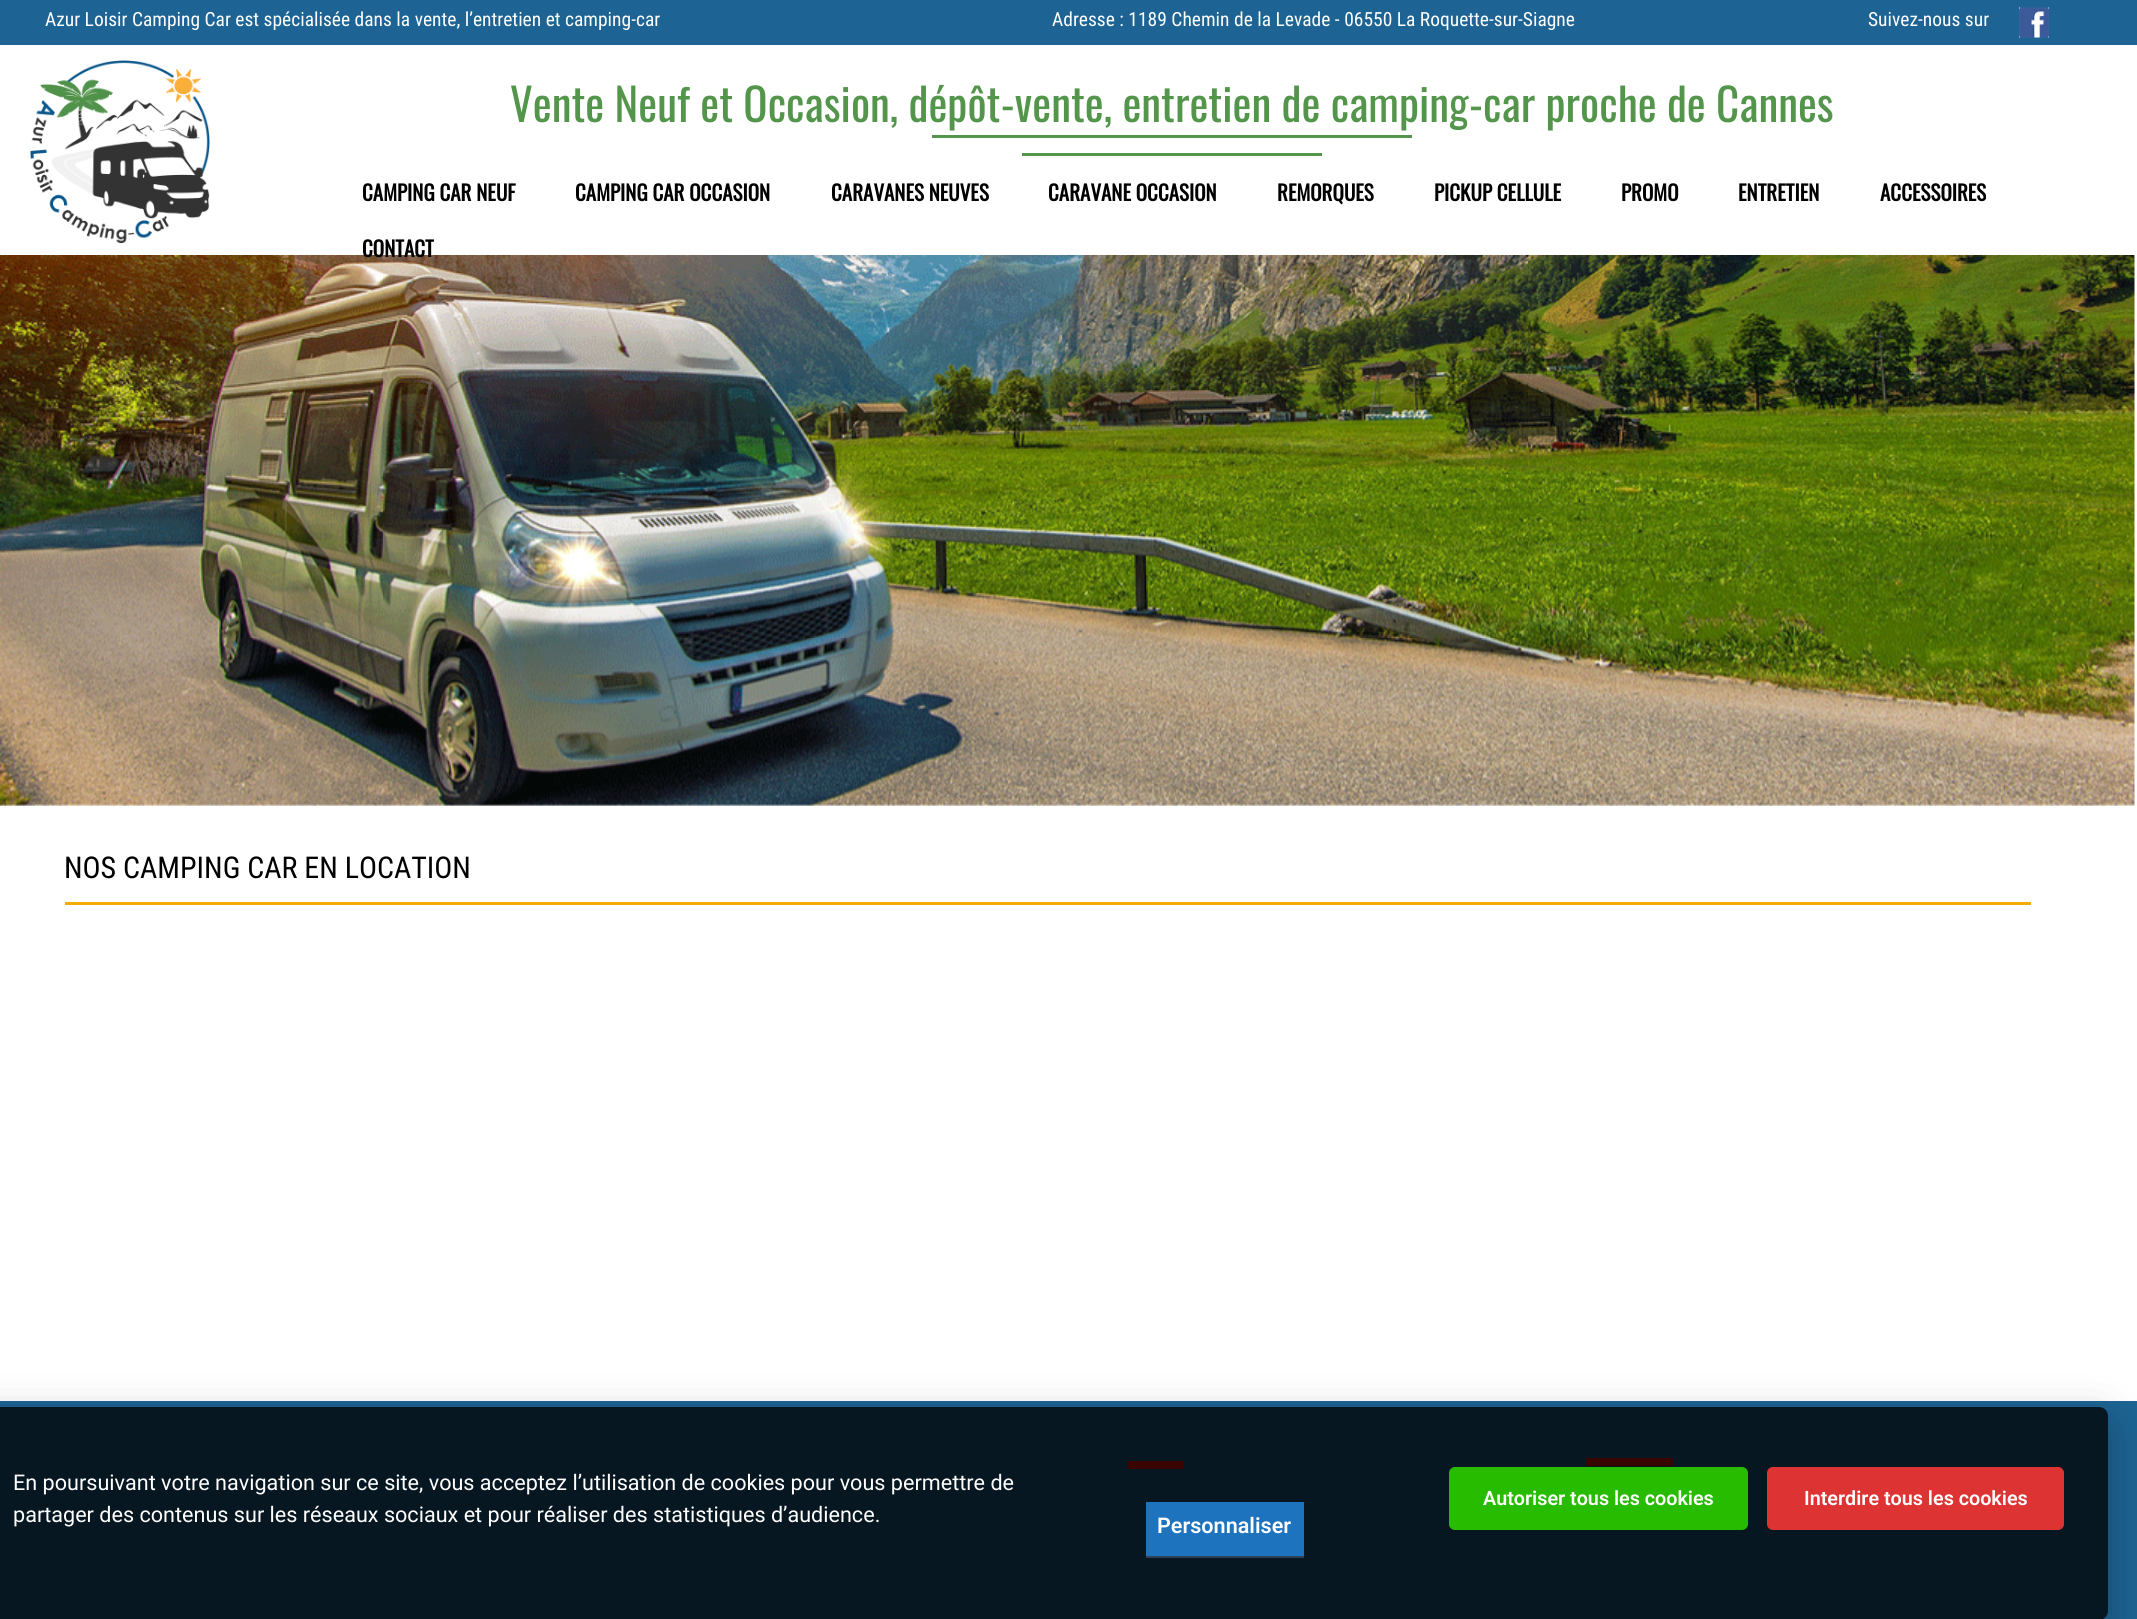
import math
import cairo



def rounded_rect(context, x, y, w, h, r):
    context.new_sub_path()
    for i, (u, v) in enumerate([(x + w - r, y + h - r), (x + r, y + h - r), (x + r, y + r), (x + w - r, y + r)]):
        context.arc(u, v, r, i * math.pi / 2, (i + 1) * math.pi / 2)
    context.close_path()


def draw_shadow(context, x, y, w, h, r, blur, alpha):
    context.push_group_with_content(cairo.Content.ALPHA)
    context.set_operator(cairo.Operator.SOURCE)
    for i in range(15, -16, -2):
        e = blur * i / 6
        if min(w, h) + 2 * e > 0:
            context.set_source_rgba(0, 0, 0, alpha * math.erfc((i - 1) / 8.5) / 2)
            rounded_rect(context, x - e, y - e, w + 2 * e, h + 2 * e, max(0, min(r + e + blur * .6, min(w, h) / 2 + e)))
            context.fill()
    context.mask(context.pop_group())


def draw_image(context, path, x, y, w, h):
    context.save()
    context.set_source_surface(cairo.ImageSurface.create_from_png(path), x, y)
    context.rectangle(x, y, w, h)
    context.fill()
    context.restore()


def draw(context):
    context.set_source_rgb(1, 1, 1)
    context.paint()
    context.set_source_rgb(29 / 255, 100 / 255, 148 / 255)
    context.rectangle(0, 0, 2137, 45)
    context.fill()
    draw_image(context, "images/1.png", 2019, 7, 30, 31)
    draw_image(context, "images/2.png", 30, 60, 180, 183)
    context.set_source_rgb(83 / 255, 149 / 255, 75 / 255)
    context.rectangle(932, 135, 480, 3)
    context.fill()
    context.rectangle(1022, 153, 300, 3)
    context.fill()
    draw_image(context, "images/3.png", 0, 255, 2136, 551)
    context.set_source_rgb(243 / 255, 173 / 255, 6 / 255)
    context.rectangle(65, 902, 1966, 3)
    context.fill()
    context.set_source_rgb(29 / 255, 100 / 255, 148 / 255)
    context.rectangle(0, 1401, 2137, 218)
    context.fill()
    context.set_source_rgb(246 / 255, 20 / 255, 14 / 255)
    context.rectangle(1128, 1461, 56, 8)
    context.fill()
    context.rectangle(1586, 1458, 87, 8)
    context.fill()
    context.save()
    context.set_fill_rule(cairo.FillRule.EVEN_ODD)
    context.new_path()
    context.move_to(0, 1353)
    context.line_to(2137, 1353)
    context.line_to(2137, 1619)
    context.line_to(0, 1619)
    context.close_path()
    context.move_to(-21, 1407)
    context.line_to(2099, 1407)
    context.curve_to(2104, 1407, 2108, 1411, 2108, 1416)
    context.line_to(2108, 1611)
    context.curve_to(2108, 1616, 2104, 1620, 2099, 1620)
    context.line_to(-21, 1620)
    context.curve_to(-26, 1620, -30, 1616, -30, 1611)
    context.line_to(-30, 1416)
    context.curve_to(-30, 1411, -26, 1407, -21, 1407)
    context.close_path()
    context.clip()
    context.set_source_rgb(2 / 255, 2 / 255, 3 / 255)
    draw_shadow(context, -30, 1422, 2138, 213, 9, 22.5, 0.28)
    context.restore()
    context.set_source_rgba(0, 0, 0, 0.77)
    rounded_rect(context, -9, 1407, 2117, 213, 9)
    context.fill()
    context.set_source_rgb(30 / 255, 115 / 255, 190 / 255)
    context.rectangle(1146, 1502, 158, 54)
    context.fill()
    context.set_source_rgb(45 / 255, 65 / 255, 86 / 255)
    context.rectangle(1146, 1556, 158, 2)
    context.fill()
    context.set_source_rgb(40 / 255, 188 / 255, 0)
    rounded_rect(context, 1449, 1467, 299, 63, 6)
    context.fill()
    context.set_source_rgb(221 / 255, 51 / 255, 51 / 255)
    rounded_rect(context, 1767, 1467, 297, 63, 6)
    context.fill()
    context.select_font_face("Roboto Condensed")
    context.set_font_size(19.5)
    context.set_source_rgb(1, 1, 1)
    context.move_to(45, 26)
    context.show_text("Azur Loisir Camping Car est spécialisée dans la vente, l’entretien et camping-car")
    context.move_to(1052, 26)
    context.show_text("Adresse : 1189 Chemin de la Levade - 06550 La Roquette-sur-Siagne")
    context.move_to(1868, 26)
    context.show_text("Suivez-nous sur")
    context.select_font_face("Oswald")
    context.set_font_size(45)
    context.set_source_rgb(83 / 255, 149 / 255, 75 / 255)
    context.move_to(510, 122)
    context.show_text("Vente Neuf et Occasion, dépôt-vente, entretien de camping-car proche de Cannes")
    context.select_font_face("Oswald", cairo.FontSlant.NORMAL, cairo.FontWeight.BOLD)
    context.set_font_size(21)
    context.set_source_rgb(0, 0, 0)
    context.move_to(362, 201)
    context.show_text("CAMPING CAR NEUF")
    context.move_to(575, 201)
    context.show_text("CAMPING CAR OCCASION")
    context.move_to(831, 201)
    context.show_text("CARAVANES NEUVES")
    context.move_to(1048, 201)
    context.show_text("CARAVANE OCCASION")
    context.move_to(1277, 201)
    context.show_text("REMORQUES")
    context.move_to(1434, 201)
    context.show_text("PICKUP CELLULE")
    context.move_to(1621, 201)
    context.show_text("PROMO")
    context.move_to(1738, 201)
    context.show_text("ENTRETIEN")
    context.move_to(1880, 201)
    context.show_text("ACCESSOIRES")
    context.move_to(362, 257)
    context.show_text("CONTACT")
    context.select_font_face("Roboto Condensed")
    context.set_font_size(30)
    context.move_to(64, 878)
    context.show_text("NOS CAMPING CAR EN LOCATION")
    context.select_font_face("Roboto")
    context.set_font_size(21.6)
    context.set_source_rgb(1, 1, 1)
    context.move_to(13, 1490)
    context.show_text("En poursuivant votre navigation sur ce site, vous acceptez l’utilisation de cookies pour vous permettre de")
    context.move_to(13, 1522)
    context.show_text("partager des contenus sur les réseaux sociaux et pour réaliser des statistiques d’audience.")
    context.select_font_face("Roboto SemiBold")
    context.move_to(1157, 1533)
    context.show_text("Personnaliser")
    context.set_font_size(19.75)
    context.move_to(1483, 1505)
    context.show_text("Autoriser tous les cookies")
    context.move_to(1804, 1505)
    context.show_text("Interdire tous les cookies")


surface = cairo.ImageSurface(cairo.Format.RGB24, 2137, 1619)
context = cairo.Context(surface)
options = cairo.FontOptions()
options.set_hint_metrics(cairo.HintMetrics.OFF)
options.set_hint_style(cairo.HintStyle.NONE)
context.set_font_options(options)
context.set_miter_limit(4)
draw(context)
surface.write_to_png("out.png")
